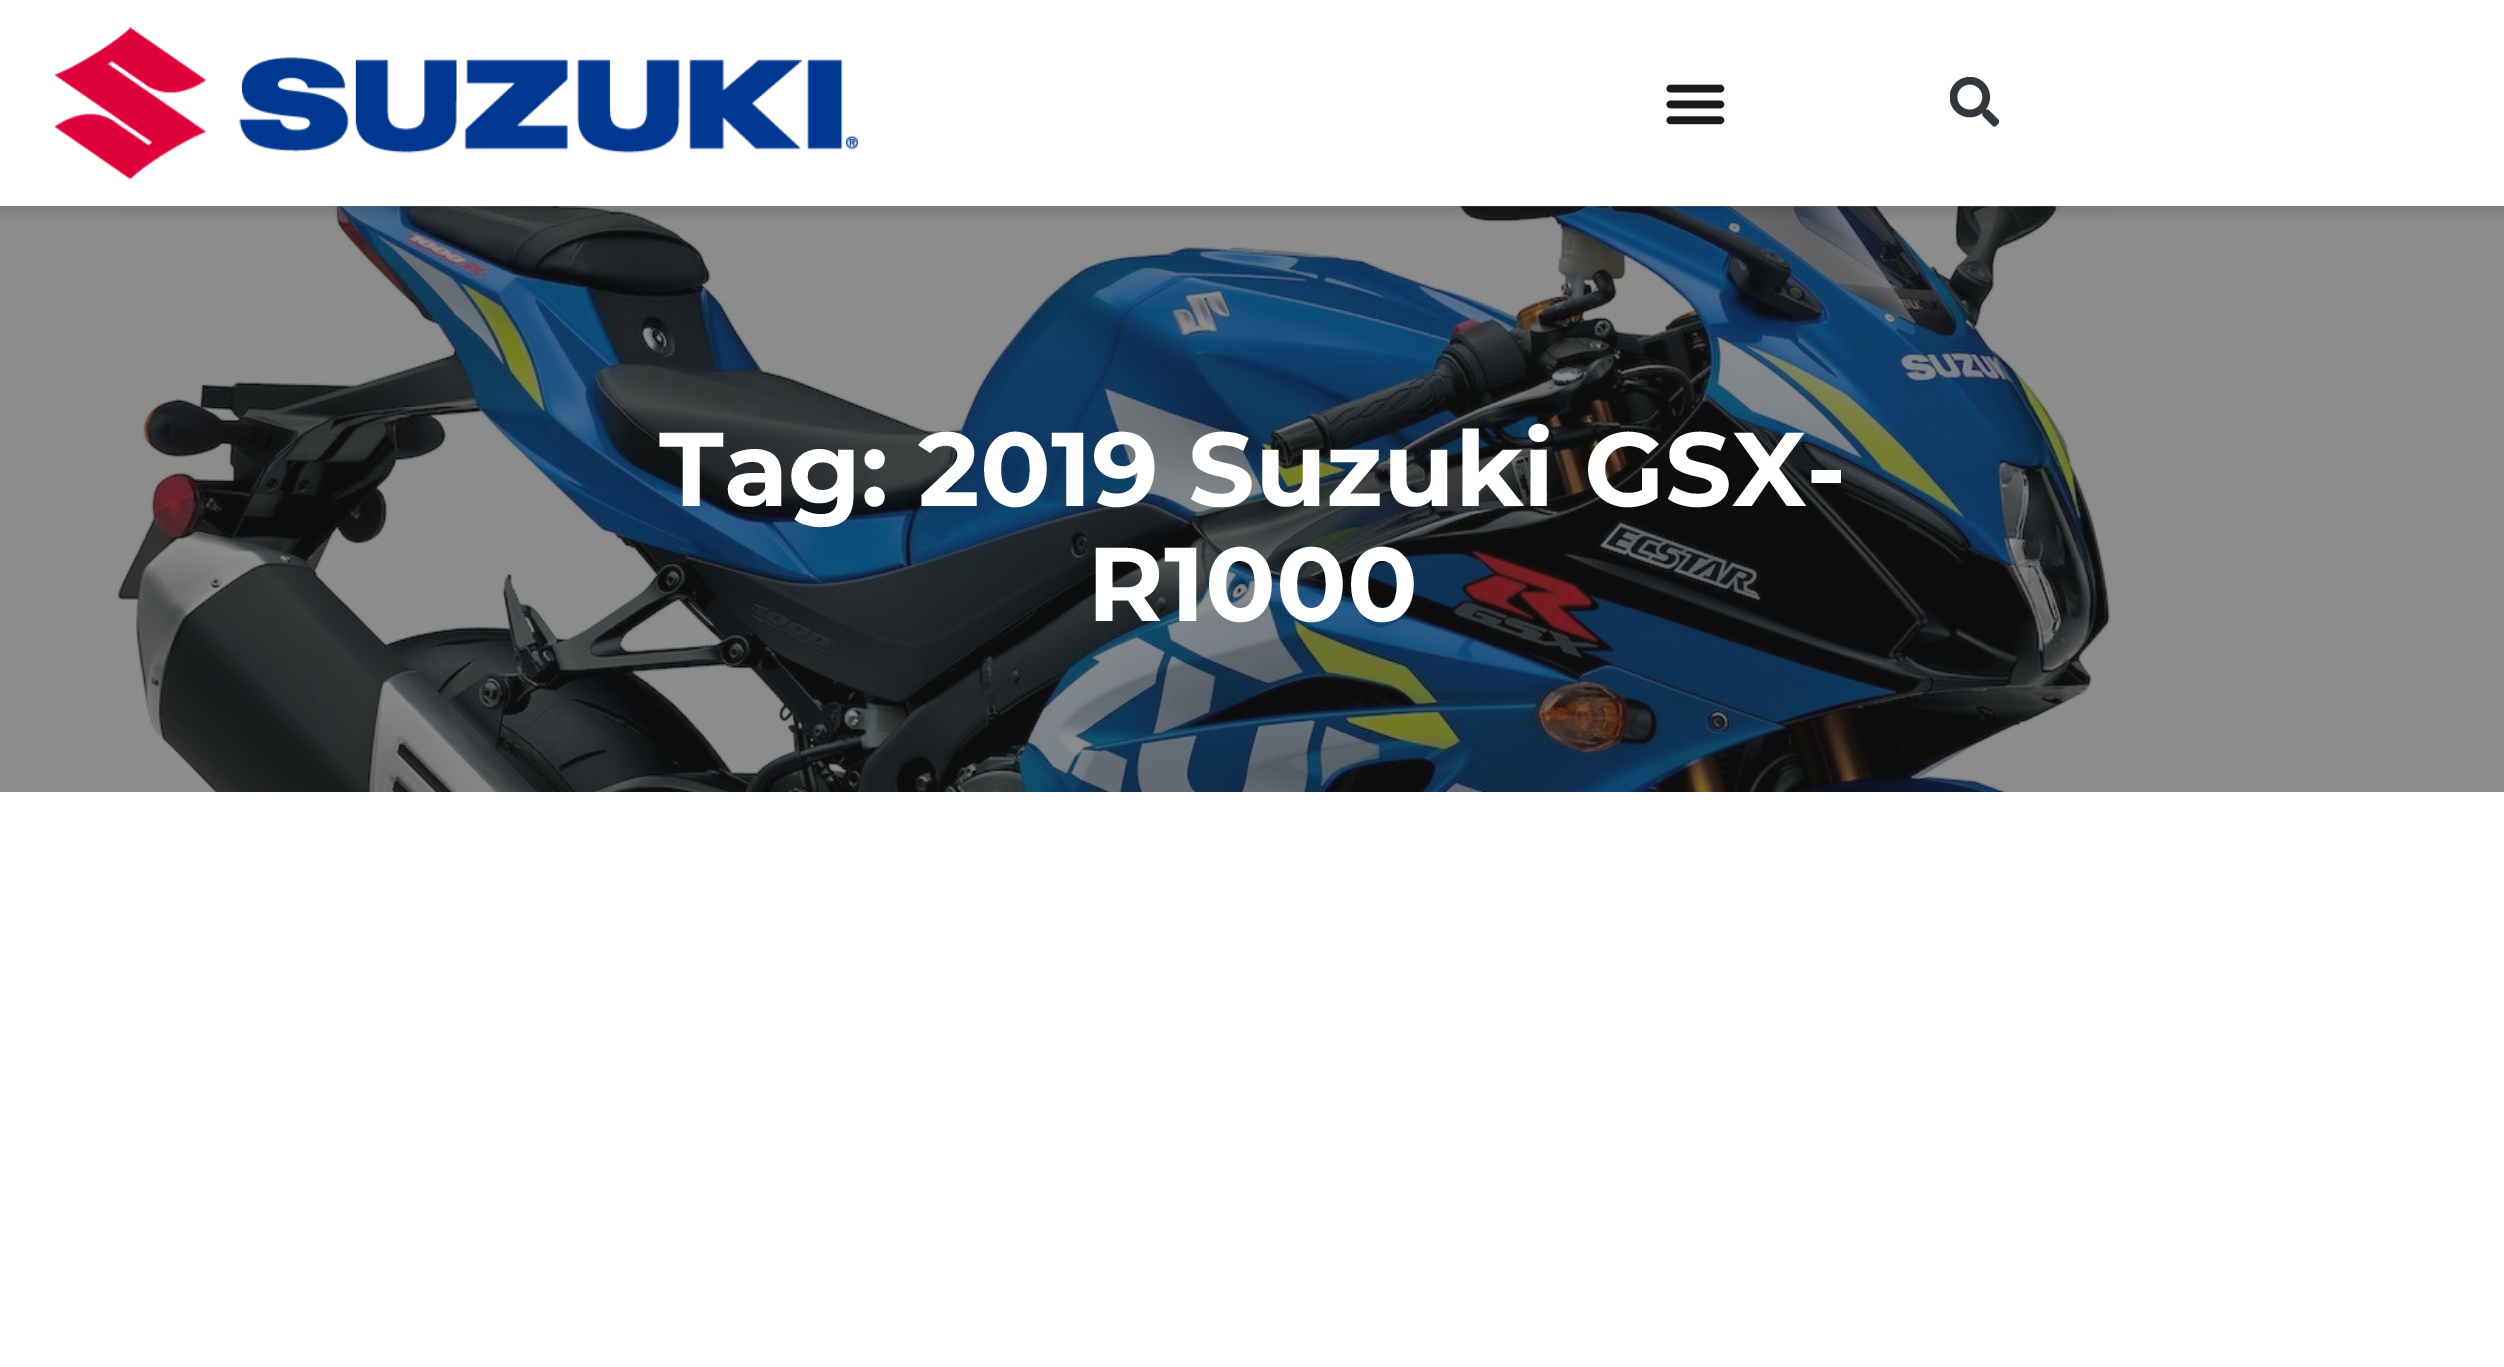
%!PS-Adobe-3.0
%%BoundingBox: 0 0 2504 1367
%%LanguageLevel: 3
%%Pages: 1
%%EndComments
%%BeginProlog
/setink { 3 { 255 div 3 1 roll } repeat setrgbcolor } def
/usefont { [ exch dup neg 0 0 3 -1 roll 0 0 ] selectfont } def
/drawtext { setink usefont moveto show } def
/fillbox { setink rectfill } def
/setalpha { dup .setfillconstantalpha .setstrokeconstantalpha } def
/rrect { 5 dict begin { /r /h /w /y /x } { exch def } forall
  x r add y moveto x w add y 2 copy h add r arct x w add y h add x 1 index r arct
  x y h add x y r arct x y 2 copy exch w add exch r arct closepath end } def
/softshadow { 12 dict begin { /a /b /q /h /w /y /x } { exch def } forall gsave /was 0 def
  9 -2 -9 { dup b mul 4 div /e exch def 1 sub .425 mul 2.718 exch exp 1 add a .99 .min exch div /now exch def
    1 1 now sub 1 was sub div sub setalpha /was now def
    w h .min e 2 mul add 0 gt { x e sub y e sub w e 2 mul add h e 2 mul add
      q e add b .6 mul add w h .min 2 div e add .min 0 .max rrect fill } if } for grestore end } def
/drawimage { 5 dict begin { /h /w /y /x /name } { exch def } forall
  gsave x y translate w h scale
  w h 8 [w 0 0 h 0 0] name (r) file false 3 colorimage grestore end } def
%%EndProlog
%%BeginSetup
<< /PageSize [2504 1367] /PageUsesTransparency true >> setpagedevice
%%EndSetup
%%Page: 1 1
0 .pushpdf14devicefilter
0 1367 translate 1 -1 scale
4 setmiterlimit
0 0 2504 1367 255 255 255 fillbox
0 206 2504 586 141 141 141 fillbox
(assets/img4.rgb) 115 206 1998 586 drawimage
gsave
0 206 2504 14 rectclip
0 0 0 setink
0 6 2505 206 0 7 0.15 softshadow
grestore
(assets/img1.rgb) 55 27 803 152 drawimage
(assets/img2.rgb) 1666 84 59 41 drawimage
(assets/img3.rgb) 1950 77 49 50 drawimage
(Tag: 2019 Suzuki GSX-) 659 506 /Montserrat-Bold 104.5 255 255 255 drawtext
(R1000) 1087 621 /Montserrat-Bold 104.5 255 255 255 drawtext
.poppdf14devicefilter showpage
%%EOF
